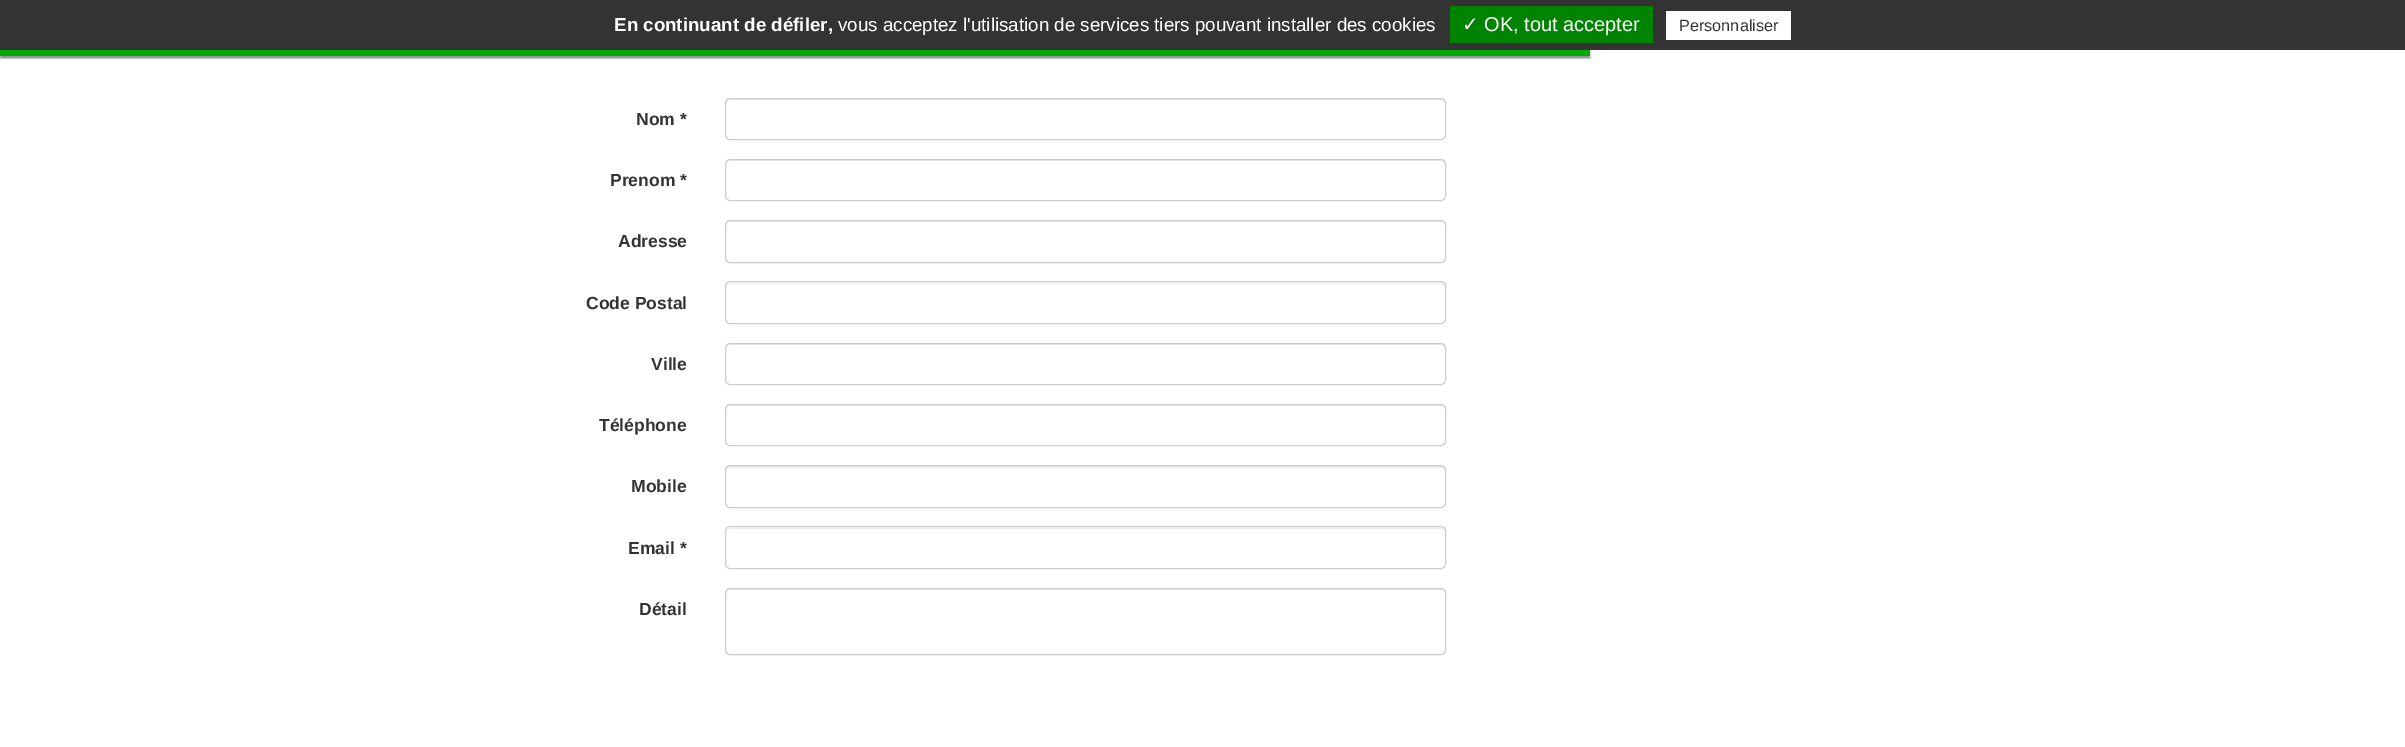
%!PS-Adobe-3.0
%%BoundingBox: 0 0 2405 747
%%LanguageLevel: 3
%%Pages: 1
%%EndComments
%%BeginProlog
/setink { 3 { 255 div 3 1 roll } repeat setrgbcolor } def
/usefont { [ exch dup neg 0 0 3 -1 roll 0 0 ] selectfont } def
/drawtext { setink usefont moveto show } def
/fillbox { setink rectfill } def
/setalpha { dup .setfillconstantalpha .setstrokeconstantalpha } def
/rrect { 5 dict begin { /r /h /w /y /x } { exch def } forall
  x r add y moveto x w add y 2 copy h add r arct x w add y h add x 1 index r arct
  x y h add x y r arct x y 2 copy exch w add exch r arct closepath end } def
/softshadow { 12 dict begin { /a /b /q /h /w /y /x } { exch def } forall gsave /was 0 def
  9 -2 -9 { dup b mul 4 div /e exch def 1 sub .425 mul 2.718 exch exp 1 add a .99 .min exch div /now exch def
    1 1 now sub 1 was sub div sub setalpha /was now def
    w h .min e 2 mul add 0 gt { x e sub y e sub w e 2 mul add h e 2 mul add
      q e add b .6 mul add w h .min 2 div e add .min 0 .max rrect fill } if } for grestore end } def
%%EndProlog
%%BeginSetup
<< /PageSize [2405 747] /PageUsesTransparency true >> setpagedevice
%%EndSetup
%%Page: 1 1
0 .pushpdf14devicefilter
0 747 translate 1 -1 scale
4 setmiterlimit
0 0 2405 747 255 255 255 fillbox
85 85 85 setink
0 51 1590 7 0 1 1 softshadow
255 255 255 setink
0 50 1590 6 0 1 1 softshadow
0 0 2405 50 51 51 51 fillbox
(En continuant de défiler,) 614 31 /LiberationSans-Bold 18.75 255 255 255 drawtext
(vous acceptez l'utilisation de services tiers pouvant installer des cookies) 838 31 /LiberationSans-Regular 18.75 255 255 255 drawtext
1450 6 203 37 0 131 0 fillbox
(✓) 1462 31 /DejaVuSans-Regular 20 255 255 255 drawtext
(OK, tout accepter) 1484 31 /LiberationSans-Regular 20 255 255 255 drawtext
1666 11 125 29 255 255 255 fillbox
(Personnaliser) 1679 31 /LiberationSans-Regular 16.25 51 51 51 drawtext
0 50 1590 6 0 170 0 fillbox
(Nom *) 636 125 /LiberationSans-Bold 17.5 51 51 51 drawtext
236 236 236 setink
730 100 moveto 1441 100 lineto 1443 100 1445 102 1445 104 curveto 1445 101 1444 99 1441 99 curveto 730 99 lineto 727 100 lineto 726 101 lineto 726 104 lineto 726 102 728 100 730 100 curveto closepath fill
204 204 204 setink
725.5 98.5 720 41 4.5 rrect stroke
(Prenom *) 610 186 /LiberationSans-Bold 17.5 51 51 51 drawtext
236 236 236 setink
730 161 moveto 1441 161 lineto 1443 161 1445 163 1445 165 curveto 1445 162 1444 160 1441 160 curveto 730 160 lineto 727 161 lineto 726 162 lineto 726 165 lineto 726 163 728 161 730 161 curveto closepath fill
204 204 204 setink
725.5 159.5 720 41 4.5 rrect stroke
(Adresse) 618 247 /LiberationSans-Bold 17.5 51 51 51 drawtext
236 236 236 setink
730 222 moveto 1441 222 lineto 1443 222 1445 224 1445 226 curveto 1445 223 1444 221 1441 221 curveto 730 221 lineto 727 222 lineto 726 223 lineto 726 226 lineto 726 224 728 222 730 222 curveto closepath fill
204 204 204 setink
725.5 220.5 720 42 4.5 rrect stroke
(Code Postal) 586 309 /LiberationSans-Bold 17.5 51 51 51 drawtext
236 236 236 setink
730 284 moveto 1441 284 lineto 1443 284 1445 285 1445 288 curveto 1445 285 1444 283 1441 283 curveto 730 283 lineto 727 284 lineto 726 285 lineto 726 288 lineto 726 285 728 284 730 284 curveto closepath fill
204 204 204 setink
725.5 281.5 720 42 4.5 rrect stroke
(Ville) 651 370 /LiberationSans-Bold 17.5 51 51 51 drawtext
236 236 236 setink
730 345 moveto 1441 345 lineto 1443 345 1445 347 1445 349 curveto 1445 346 1444 344 1441 344 curveto 730 344 lineto 727 345 lineto 726 346 lineto 726 349 lineto 726 347 728 345 730 345 curveto closepath fill
204 204 204 setink
725.5 343.5 720 41 4.5 rrect stroke
(Téléphone) 599 431 /LiberationSans-Bold 17.5 51 51 51 drawtext
236 236 236 setink
730 406 moveto 1441 406 lineto 1443 406 1445 408 1445 410 curveto 1445 407 1444 405 1441 405 curveto 730 405 lineto 727 406 lineto 726 407 lineto 726 410 lineto 726 408 728 406 730 406 curveto closepath fill
204 204 204 setink
725.5 404.5 720 41 4.5 rrect stroke
(Mobile) 631 492 /LiberationSans-Bold 17.5 51 51 51 drawtext
236 236 236 setink
730 468 moveto 1441 468 lineto 1443 468 1445 469 1445 471 curveto 1445 468 1444 466 1441 466 curveto 730 466 lineto 727 467 lineto 726 468 lineto 726 471 lineto 726 469 728 468 730 468 curveto closepath fill
204 204 204 setink
725.5 465.5 720 42 4.5 rrect stroke
(Email *) 628 554 /LiberationSans-Bold 17.5 51 51 51 drawtext
236 236 236 setink
730 529 moveto 1441 529 lineto 1443 529 1445 530 1445 532 curveto 1445 530 1443 528 1441 528 curveto 730 528 lineto 728 528 726 530 726 532 curveto 726 530 728 529 730 529 curveto closepath fill
204 204 204 setink
725.5 526.5 720 42 4.5 rrect stroke
(Détail) 639 615 /LiberationSans-Bold 17.5 51 51 51 drawtext
236 236 236 setink
730 590 moveto 1441 590 lineto 1443 590 1445 592 1445 594 curveto 1445 591 1444 589 1441 589 curveto 730 589 lineto 727 590 lineto 726 591 lineto 726 594 lineto 726 592 728 590 730 590 curveto closepath fill
204 204 204 setink
725.5 588.5 720 66 4.5 rrect stroke
.poppdf14devicefilter showpage
%%EOF
